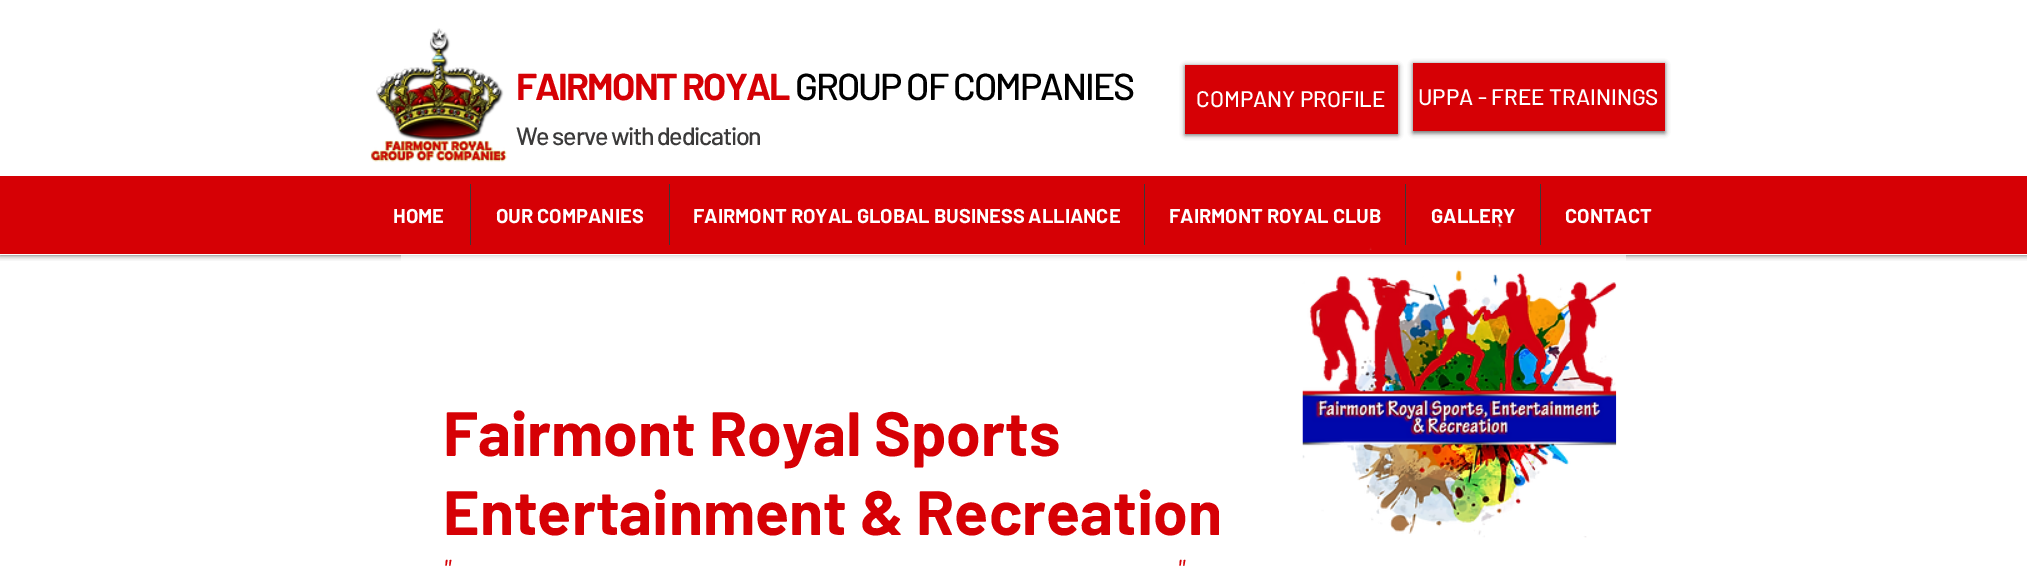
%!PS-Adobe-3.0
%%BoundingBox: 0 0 2027 567
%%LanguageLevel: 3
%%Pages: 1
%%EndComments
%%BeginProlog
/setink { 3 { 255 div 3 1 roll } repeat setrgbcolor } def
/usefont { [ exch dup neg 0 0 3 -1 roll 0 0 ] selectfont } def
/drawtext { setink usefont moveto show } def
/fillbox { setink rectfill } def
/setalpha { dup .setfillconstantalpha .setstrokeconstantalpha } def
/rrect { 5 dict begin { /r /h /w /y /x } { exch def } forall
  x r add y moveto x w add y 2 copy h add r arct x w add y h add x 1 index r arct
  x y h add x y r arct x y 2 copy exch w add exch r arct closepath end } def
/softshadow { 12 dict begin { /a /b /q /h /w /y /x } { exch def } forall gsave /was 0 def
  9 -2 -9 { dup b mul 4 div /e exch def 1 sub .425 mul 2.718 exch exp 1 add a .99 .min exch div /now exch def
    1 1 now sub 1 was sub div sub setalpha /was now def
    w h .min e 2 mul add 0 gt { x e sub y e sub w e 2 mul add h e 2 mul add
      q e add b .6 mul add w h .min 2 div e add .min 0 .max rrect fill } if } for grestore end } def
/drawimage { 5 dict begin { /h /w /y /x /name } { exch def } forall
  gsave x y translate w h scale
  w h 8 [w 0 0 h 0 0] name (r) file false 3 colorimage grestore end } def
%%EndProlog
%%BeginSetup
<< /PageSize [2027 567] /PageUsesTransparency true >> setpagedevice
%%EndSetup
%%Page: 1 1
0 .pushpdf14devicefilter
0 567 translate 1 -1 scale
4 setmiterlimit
0 0 2027 567 255 255 255 fillbox
gsave
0 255 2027 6 rectclip
0 0 0 setink
0 0 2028 255 0 3 0.7 softshadow
grestore
(assets/img1.rgb) 370 28 137 134 drawimage
/Barlow-Bold 37.5 usefont
214 0 5 setink
516 100 moveto -1.9 0 (FAIRMONT ROYAL) ashow
/Barlow-Medium 37.5 usefont
0 0 0 setink
795 100 moveto -1.9 0 (GROUP OF COMPANIES) ashow
1185 66 213 69 0 2.5 0.6 softshadow
1185 65 213 69 214 0 5 fillbox
(COMPANY PROFILE) 1196 107 /Barlow-Medium 22.5 255 255 255 drawtext
0 0 0 setink
1413 64 252 69 0 2.5 0.6 softshadow
1413 63 252 68 214 0 5 fillbox
(UPPA - FREE TRAININGS) 1418 105 /Barlow-Medium 22.5 255 255 255 drawtext
/Barlow-Medium 25 usefont
59 58 58 setink
516 145 moveto -1.25 0 (We serve with dedication) ashow
0 176 2027 78 214 0 5 fillbox
(HOME) 393 223 /Barlow-Bold 20 255 255 255 drawtext
470 184 1 61 59 58 58 fillbox
(OUR COMPANIES) 496 223 /Barlow-Bold 20 255 255 255 drawtext
669 184 1 61 59 58 58 fillbox
(FAIRMONT ROYAL GLOBAL BUSINESS ALLIANCE) 693 223 /Barlow-Bold 20 255 255 255 drawtext
1144 184 1 61 59 58 58 fillbox
(FAIRMONT ROYAL CLUB) 1169 223 /Barlow-Bold 20 255 255 255 drawtext
1405 184 1 61 59 58 58 fillbox
(GALLERY) 1431 223 /Barlow-Bold 20 255 255 255 drawtext
1540 184 1 61 59 58 58 fillbox
(CONTACT) 1565 223 /Barlow-Bold 20 255 255 255 drawtext
0.6 setalpha
401 255 1225 6 255 255 255 fillbox
1 setalpha
(Fairmont Royal Sports) 443 456 /Barlow-Bold 62.5 214 0 5 drawtext
(Entertainment & Recreation) 443 535 /Barlow-Bold 62.5 214 0 5 drawtext
(assets/img2.rgb) 1302 223 315 315 drawimage
(") 443 580 /Barlow-Italic 29 214 0 5 drawtext
(") 1177 580 /Barlow-Italic 29 214 0 5 drawtext
.poppdf14devicefilter showpage
%%EOF
